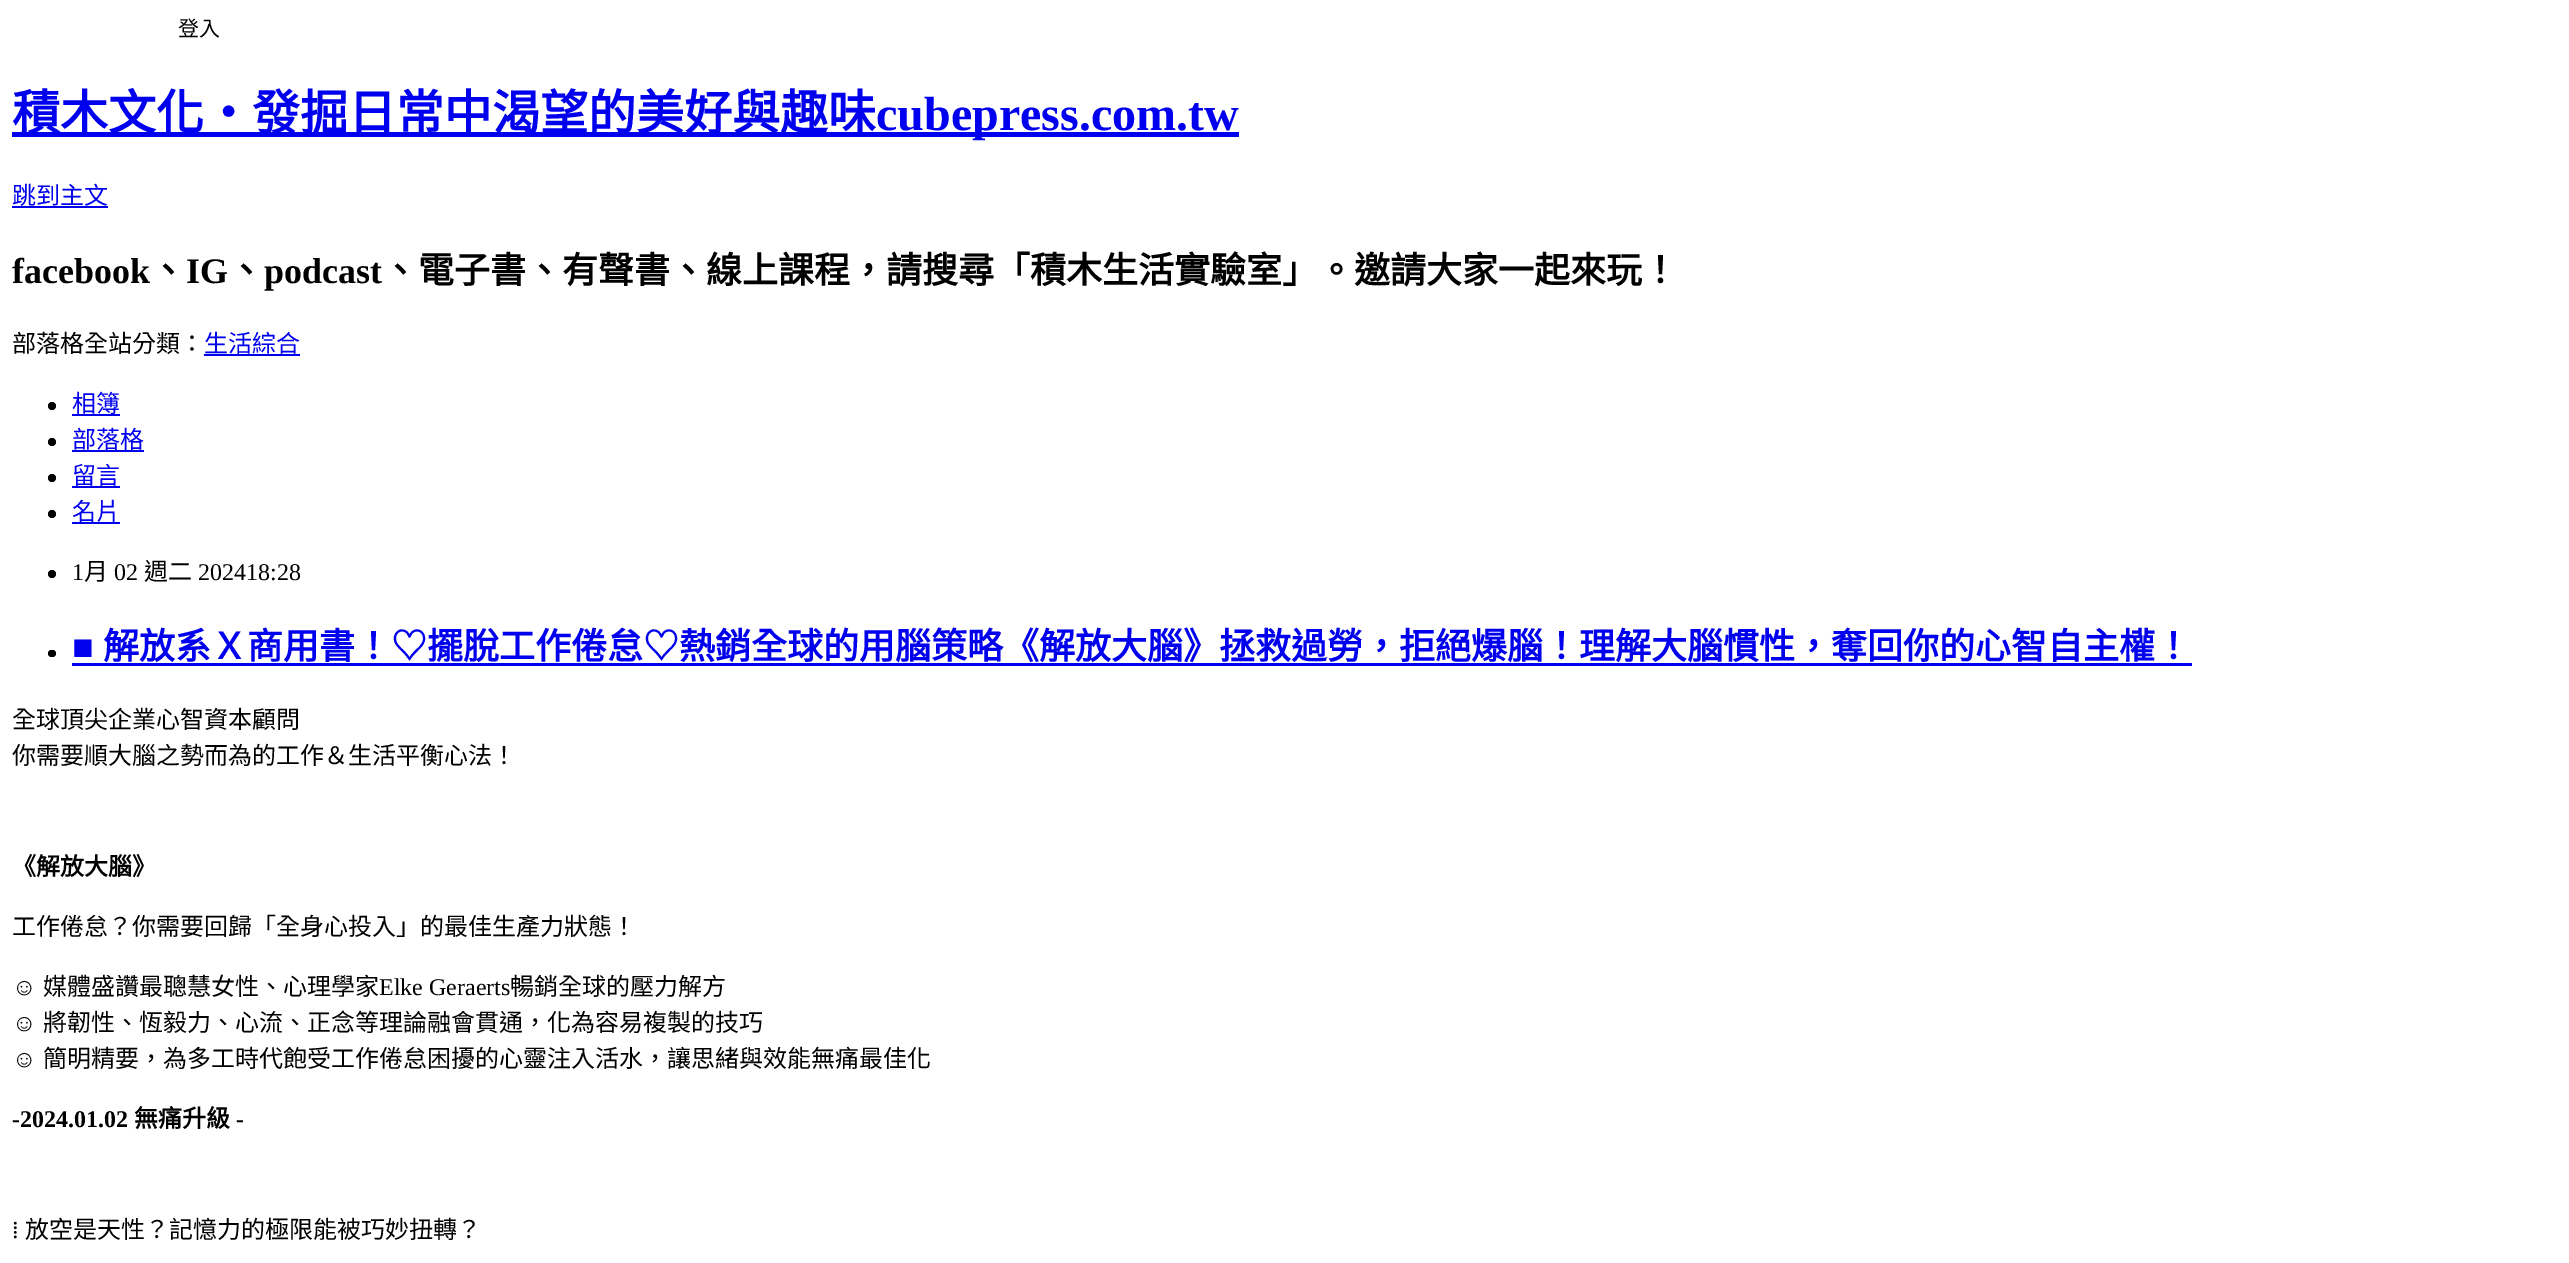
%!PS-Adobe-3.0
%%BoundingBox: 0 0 2569 1263
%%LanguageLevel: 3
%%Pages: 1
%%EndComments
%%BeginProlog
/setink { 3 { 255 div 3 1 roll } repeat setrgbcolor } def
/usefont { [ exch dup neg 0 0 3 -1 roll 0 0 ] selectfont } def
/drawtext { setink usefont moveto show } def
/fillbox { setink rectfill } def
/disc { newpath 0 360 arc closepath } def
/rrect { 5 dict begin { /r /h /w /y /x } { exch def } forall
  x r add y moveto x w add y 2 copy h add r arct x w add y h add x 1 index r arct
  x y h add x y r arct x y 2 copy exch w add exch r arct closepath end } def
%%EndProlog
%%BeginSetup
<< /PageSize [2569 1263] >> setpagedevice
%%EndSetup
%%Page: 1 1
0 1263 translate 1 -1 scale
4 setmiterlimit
0 0 2569 1263 255 255 255 fillbox
(登入) 178 36 /NotoSansCJKTC-Regular 21 0 0 0 drawtext
12 132 1227 5 0 0 238 fillbox
(積木文化‧發掘日常中渴望的美好與趣味) 12 130 /NotoSansCJKTC-Bold 48 0 0 238 drawtext
(cubepress.com.tw) 876 130 /LiberationSerif-Bold 48 0 0 238 drawtext
(跳到主文) 12 204 /NotoSansCJKTC-Regular 24 0 0 238 drawtext
12 206 96 2 0 0 238 fillbox
(facebook) 12 283 /LiberationSerif-Bold 36 0 0 0 drawtext
(、) 150 283 /NotoSansCJKTC-Bold 36 0 0 0 drawtext
(IG) 186 283 /LiberationSerif-Bold 36 0 0 0 drawtext
(、) 228 283 /NotoSansCJKTC-Bold 36 0 0 0 drawtext
(podcast) 264 283 /LiberationSerif-Bold 36 0 0 0 drawtext
(、電子書、有聲書、線上課程，請搜尋「積木生活實驗室」。邀請大家一起來玩！) 382 283 /NotoSansCJKTC-Bold 36 0 0 0 drawtext
(部落格全站分類：) 12 352 /NotoSansCJKTC-Regular 24 0 0 0 drawtext
(生活綜合) 204 352 /NotoSansCJKTC-Regular 24 0 0 238 drawtext
204 354 96 2 0 0 238 fillbox
0 0 0 setink
52 406 4 disc fill
(相簿) 72 412 /NotoSansCJKTC-Regular 24 0 0 238 drawtext
72 414 48 2 0 0 238 fillbox
0 0 0 setink
52 442 4 disc fill
(部落格) 72 448 /NotoSansCJKTC-Regular 24 0 0 238 drawtext
72 450 72 2 0 0 238 fillbox
0 0 0 setink
52 478 4 disc fill
(留言) 72 484 /NotoSansCJKTC-Regular 24 0 0 238 drawtext
72 486 48 2 0 0 238 fillbox
0 0 0 setink
52 514 4 disc fill
(名片) 72 520 /NotoSansCJKTC-Regular 24 0 0 238 drawtext
72 522 48 2 0 0 238 fillbox
0 0 0 setink
52 574 4 disc fill
(1) 72 580 /LiberationSerif-Regular 24 0 0 0 drawtext
(月) 84 580 /NotoSansCJKTC-Regular 24 0 0 0 drawtext
(02) 114 580 /LiberationSerif-Regular 24 0 0 0 drawtext
(週二) 144 580 /NotoSansCJKTC-Regular 24 0 0 0 drawtext
(202418:28) 198 580 /LiberationSerif-Regular 24 0 0 0 drawtext
48 650 8 7 3.5 rrect fill
(■) 72 659 /LiberationSerif-Bold 36 0 0 238 drawtext
72 663 2120 3 0 0 238 fillbox
(解放系Ｘ商用書！♡擺脫工作倦怠♡熱銷全球的用腦策略《解放大腦》拯救過勞，拒絕爆腦！理解大腦慣性，奪回你的心智自主權！) 103 659 /NotoSansCJKTC-Bold 36 0 0 238 drawtext
(全球頂尖企業心智資本顧問) 12 728 /NotoSansCJKTC-Regular 24 0 0 0 drawtext
(你需要順大腦之勢而為的工作＆生活平衡心法！) 12 764 /NotoSansCJKTC-Regular 24 0 0 0 drawtext
(《解放大腦》) 12 875 /NotoSansCJKTC-Bold 24 0 0 0 drawtext
(工作倦怠？你需要回歸「全身心投入」的最佳生產力狀態！) 12 935 /NotoSansCJKTC-Regular 24 0 0 0 drawtext
(☺) 12 995 /LiberationSerif-Regular 24 0 0 0 drawtext
(媒體盛讚最聰慧女性、心理學家) 43 995 /NotoSansCJKTC-Regular 24 0 0 0 drawtext
(Elke Geraerts) 379 995 /LiberationSerif-Regular 24 0 0 0 drawtext
(暢銷全球的壓力解方) 510 995 /NotoSansCJKTC-Regular 24 0 0 0 drawtext
(☺) 12 1031 /LiberationSerif-Regular 24 0 0 0 drawtext
(將韌性、恆毅力、心流、正念等理論融會貫通，化為容易複製的技巧) 43 1031 /NotoSansCJKTC-Regular 24 0 0 0 drawtext
(☺) 12 1067 /LiberationSerif-Regular 24 0 0 0 drawtext
(簡明精要，為多工時代飽受工作倦怠困擾的心靈注入活水，讓思緒與效能無痛最佳化) 43 1067 /NotoSansCJKTC-Regular 24 0 0 0 drawtext
(-2024.01.02) 12 1127 /LiberationSerif-Bold 24 0 0 0 drawtext
(無痛升級) 134 1127 /NotoSansCJKTC-Bold 24 0 0 0 drawtext
(-) 236 1127 /LiberationSerif-Bold 24 0 0 0 drawtext
(⁞) 12 1238 /LiberationSerif-Regular 24 0 0 0 drawtext
(放空是天性？記憶力的極限能被巧妙扭轉？) 25 1238 /NotoSansCJKTC-Regular 24 0 0 0 drawtext
showpage
%%EOF
